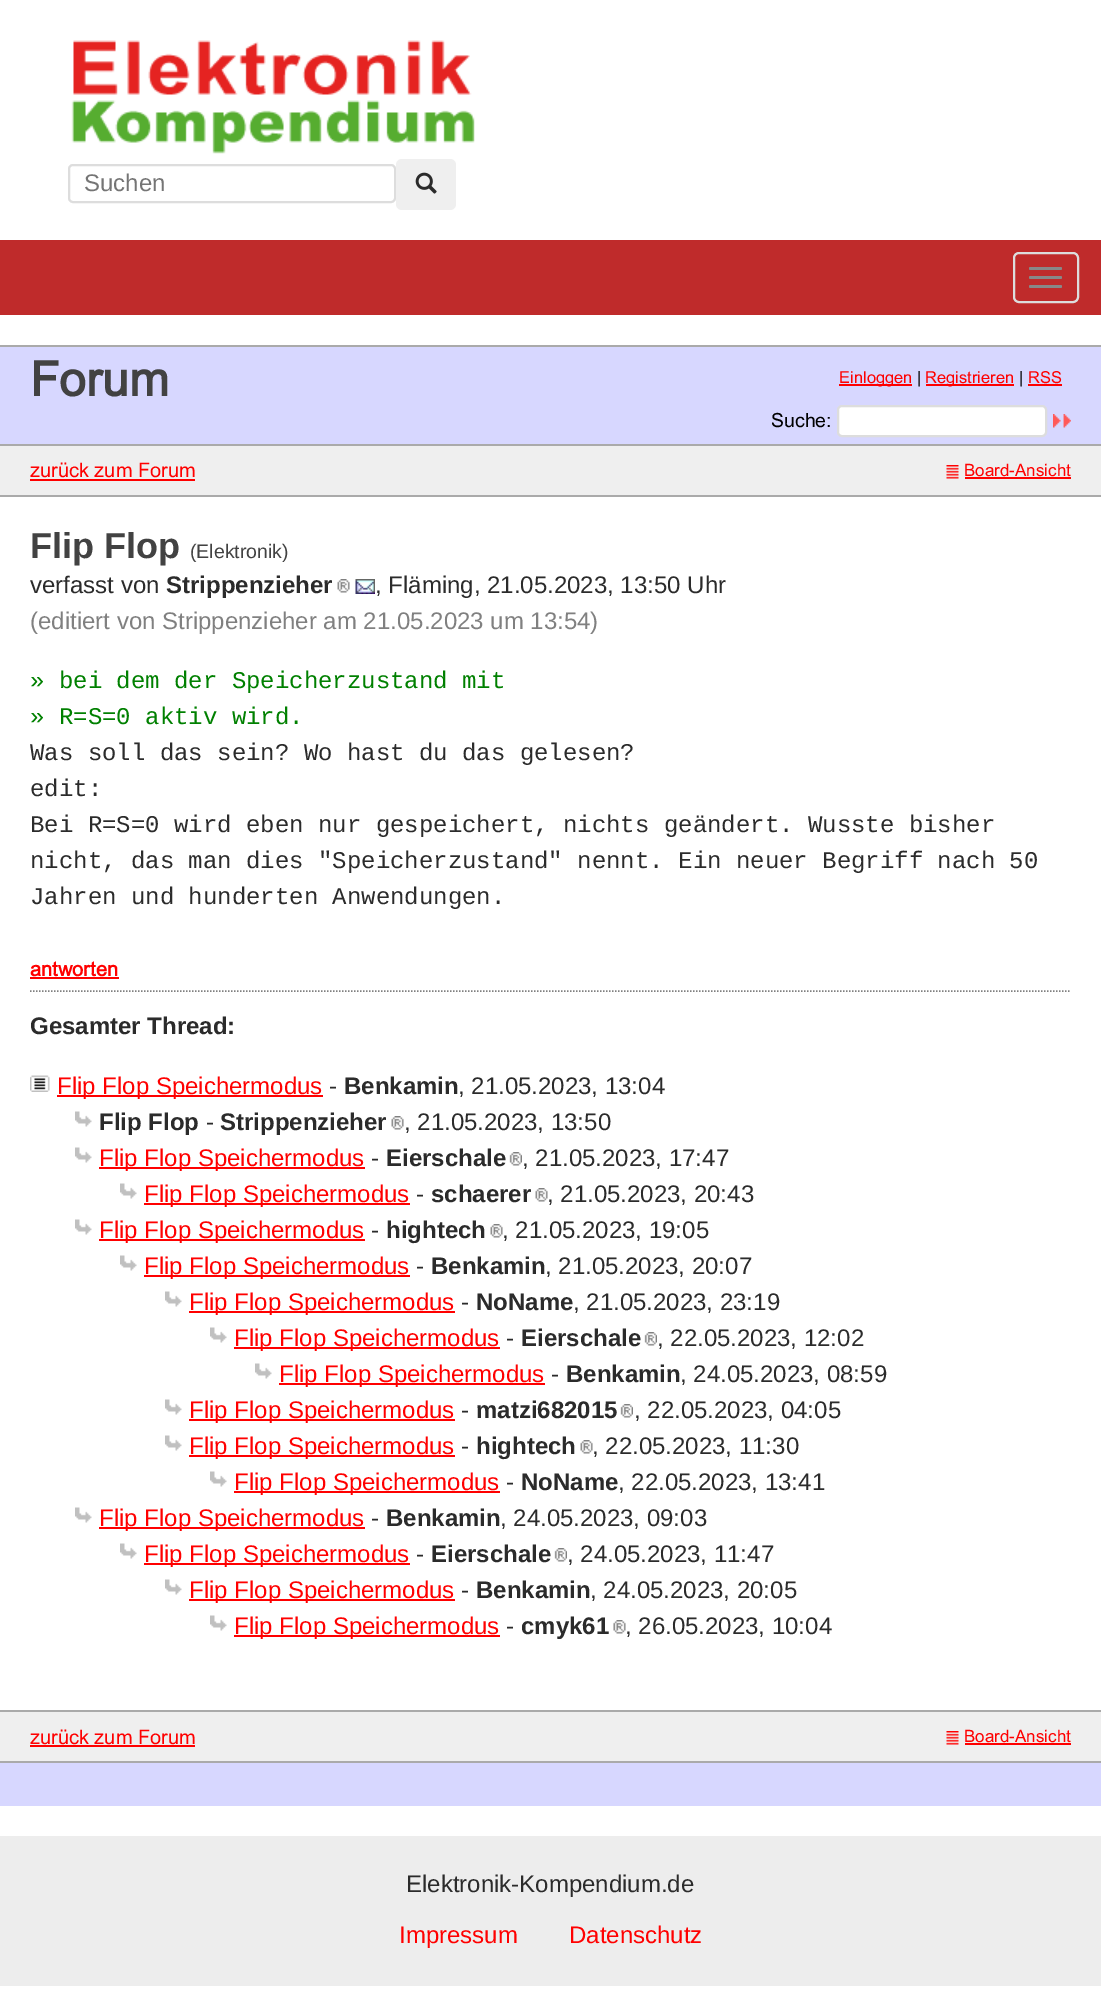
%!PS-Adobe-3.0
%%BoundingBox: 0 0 1101 2003
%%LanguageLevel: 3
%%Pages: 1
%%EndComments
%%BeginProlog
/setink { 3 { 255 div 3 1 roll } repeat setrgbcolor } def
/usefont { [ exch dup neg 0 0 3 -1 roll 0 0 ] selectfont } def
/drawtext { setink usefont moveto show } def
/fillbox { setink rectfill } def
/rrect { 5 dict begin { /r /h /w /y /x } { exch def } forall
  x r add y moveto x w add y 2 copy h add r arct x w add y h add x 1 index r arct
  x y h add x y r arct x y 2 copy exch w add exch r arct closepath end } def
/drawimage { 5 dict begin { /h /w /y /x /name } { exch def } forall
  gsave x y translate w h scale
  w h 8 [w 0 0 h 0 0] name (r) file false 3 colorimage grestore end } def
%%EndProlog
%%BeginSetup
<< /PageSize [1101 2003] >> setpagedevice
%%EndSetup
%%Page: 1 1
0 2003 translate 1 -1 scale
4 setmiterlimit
0 0 1101 2003 255 255 255 fillbox
(assets/img1.rgb) 71 40 404 114 drawimage
221 221 221 setink
2 setlinewidth
69 165 326 37 4 rrect stroke
(Suchen) 84 191 /LiberationSans-Regular 24 117 117 117 drawtext
239 239 239 setink
396 159 60 51 6 rrect fill
(assets/img2.rgb) 415 172 22 22 drawimage
0 240 1101 75 191 43 43 fillbox
221 221 221 setink
1014 253 64 49 5 rrect stroke
136 136 136 setink
1029 267 33 3 1.5 rrect fill
1029 276 33 3 1.5 rrect fill
1029 285 33 3 1.5 rrect fill
0 345 1101 2 170 170 170 fillbox
0 347 1101 97 215 215 255 fillbox
(Forum) 30 396 /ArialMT-Bold 48 66 66 66 drawtext
839 384 73 2 255 0 0 fillbox
(Einloggen) 839 383 /ArialMT-Regular 16.5 255 0 0 drawtext
(|) 917 383 /ArialMT-Regular 16.5 0 0 0 drawtext
926 384 88 2 255 0 0 fillbox
(Registrieren) 925 383 /ArialMT-Regular 16.5 255 0 0 drawtext
(|) 1019 383 /ArialMT-Regular 16.5 0 0 0 drawtext
(RSS) 1028 383 /ArialMT-Regular 16.5 255 0 0 drawtext
1028 384 34 2 255 0 0 fillbox
(Suche:) 771 427 /ArialMT-Regular 19.5 0 0 0 drawtext
255 255 255 setink
838 406 208 30 4 rrect gsave fill grestore
221 221 221 setink
stroke
(assets/img3.rgb) 1053 414 18 14 drawimage
0 446 1101 49 239 239 239 fillbox
0 444 1101 2 170 170 170 fillbox
(zurück zum Forum) 30 477 /ArialMT-Regular 20 255 0 0 drawtext
30 479 165 2 255 0 0 fillbox
(assets/img4.rgb) 946 465 13 14 drawimage
(Board-Ansicht) 964 476 /ArialMT-Regular 17 255 0 0 drawtext
965 477 106 2 255 0 0 fillbox
0 495 1101 2 170 170 170 fillbox
(Flip Flop) 30 558 /LiberationSans-Bold 36 66 66 66 drawtext
(\(Elektronik\)) 190 558 /LiberationSans-Regular 19.5 66 66 66 drawtext
(verfasst von) 30 593 /LiberationSans-Regular 24 43 43 43 drawtext
(Strippenzieher) 166 593 /LiberationSans-Bold 24 43 43 43 drawtext
(assets/img5.rgb) 337 579 13 14 drawimage
(assets/img6.rgb) 355 579 20 15 drawimage
(, Fläming, 21.05.2023, 13:50 Uhr) 375 593 /LiberationSans-Regular 24 43 43 43 drawtext
(\(editiert von Strippenzieher am 21.05.2023 um 13:54\)) 30 629 /LiberationSans-Regular 24 128 128 128 drawtext
(» bei dem der Speicherzustand mit) 30 688 /LiberationMono-Regular 24 0 128 0 drawtext
(» R=S=0 aktiv wird.) 30 724 /LiberationMono-Regular 24 0 128 0 drawtext
(Was soll das sein? Wo hast du das gelesen?) 30 760 /LiberationMono-Regular 24 43 43 43 drawtext
(edit:) 30 796 /LiberationMono-Regular 24 43 43 43 drawtext
(Bei R=S=0 wird eben nur gespeichert, nichts geändert. Wusste bisher) 30 832 /LiberationMono-Regular 24 43 43 43 drawtext
(nicht, das man dies "Speicherzustand" nennt. Ein neuer Begriff nach 50) 30 868 /LiberationMono-Regular 24 43 43 43 drawtext
(Jahren und hunderten Anwendungen.) 30 904 /LiberationMono-Regular 24 43 43 43 drawtext
(antworten) 30 976 /ArialMT-Bold 20 255 0 0 drawtext
30 977 89 2 255 0 0 fillbox
128 128 128 setink
1.5 setlinewidth
[1.5 1.5] 0 setdash
30 991 moveto 1071 991 lineto stroke
(Gesamter Thread:) 30 1034 /LiberationSans-Bold 24 43 43 43 drawtext
(assets/img7.rgb) 30 1075 20 17 drawimage
57 1095 266 2 255 0 0 fillbox
(Flip Flop Speichermodus) 57 1094 /LiberationSans-Regular 24 255 0 0 drawtext
(-) 329 1094 /LiberationSans-Regular 24 43 43 43 drawtext
(Benkamin) 344 1094 /LiberationSans-Bold 24 43 43 43 drawtext
(, 21.05.2023, 13:04) 458 1094 /LiberationSans-Regular 24 43 43 43 drawtext
(assets/img8.rgb) 75 1111 17 16 drawimage
(Flip Flop) 99 1130 /LiberationSans-Bold 24 43 43 43 drawtext
(-) 206 1130 /LiberationSans-Regular 24 43 43 43 drawtext
(Strippenzieher) 220 1130 /LiberationSans-Bold 24 43 43 43 drawtext
(assets/img5.rgb) 391 1116 13 14 drawimage
(, 21.05.2023, 13:50) 404 1130 /LiberationSans-Regular 24 43 43 43 drawtext
(assets/img8.rgb) 75 1147 17 16 drawimage
99 1167 266 2 255 0 0 fillbox
(Flip Flop Speichermodus) 99 1166 /LiberationSans-Regular 24 255 0 0 drawtext
(-) 371 1166 /LiberationSans-Regular 24 43 43 43 drawtext
(Eierschale) 386 1166 /LiberationSans-Bold 24 43 43 43 drawtext
(assets/img9.rgb) 509 1152 13 14 drawimage
(, 21.05.2023, 17:47) 522 1166 /LiberationSans-Regular 24 43 43 43 drawtext
(assets/img8.rgb) 120 1183 17 16 drawimage
144 1203 266 2 255 0 0 fillbox
(Flip Flop Speichermodus) 144 1202 /LiberationSans-Regular 24 255 0 0 drawtext
(-) 416 1202 /LiberationSans-Regular 24 43 43 43 drawtext
(schaerer) 431 1202 /LiberationSans-Bold 24 43 43 43 drawtext
(assets/img5.rgb) 535 1188 13 14 drawimage
(, 21.05.2023, 20:43) 547 1202 /LiberationSans-Regular 24 43 43 43 drawtext
(assets/img8.rgb) 75 1219 17 16 drawimage
99 1239 266 2 255 0 0 fillbox
(Flip Flop Speichermodus) 99 1238 /LiberationSans-Regular 24 255 0 0 drawtext
(-) 371 1238 /LiberationSans-Regular 24 43 43 43 drawtext
(hightech) 386 1238 /LiberationSans-Bold 24 43 43 43 drawtext
(assets/img5.rgb) 490 1224 13 14 drawimage
(, 21.05.2023, 19:05) 502 1238 /LiberationSans-Regular 24 43 43 43 drawtext
(assets/img8.rgb) 120 1255 17 16 drawimage
144 1275 266 2 255 0 0 fillbox
(Flip Flop Speichermodus) 144 1274 /LiberationSans-Regular 24 255 0 0 drawtext
(-) 416 1274 /LiberationSans-Regular 24 43 43 43 drawtext
(Benkamin) 431 1274 /LiberationSans-Bold 24 43 43 43 drawtext
(, 21.05.2023, 20:07) 545 1274 /LiberationSans-Regular 24 43 43 43 drawtext
(assets/img8.rgb) 165 1291 17 16 drawimage
189 1311 266 2 255 0 0 fillbox
(Flip Flop Speichermodus) 189 1310 /LiberationSans-Regular 24 255 0 0 drawtext
(-) 461 1310 /LiberationSans-Regular 24 43 43 43 drawtext
(NoName) 476 1310 /LiberationSans-Bold 24 43 43 43 drawtext
(, 21.05.2023, 23:19) 573 1310 /LiberationSans-Regular 24 43 43 43 drawtext
(assets/img8.rgb) 210 1327 17 16 drawimage
234 1347 266 2 255 0 0 fillbox
(Flip Flop Speichermodus) 234 1346 /LiberationSans-Regular 24 255 0 0 drawtext
(-) 506 1346 /LiberationSans-Regular 24 43 43 43 drawtext
(Eierschale) 521 1346 /LiberationSans-Bold 24 43 43 43 drawtext
(assets/img10.rgb) 644 1332 13 14 drawimage
(, 22.05.2023, 12:02) 657 1346 /LiberationSans-Regular 24 43 43 43 drawtext
(assets/img8.rgb) 255 1363 17 16 drawimage
279 1383 266 2 255 0 0 fillbox
(Flip Flop Speichermodus) 279 1382 /LiberationSans-Regular 24 255 0 0 drawtext
(-) 551 1382 /LiberationSans-Regular 24 43 43 43 drawtext
(Benkamin) 566 1382 /LiberationSans-Bold 24 43 43 43 drawtext
(, 24.05.2023, 08:59) 680 1382 /LiberationSans-Regular 24 43 43 43 drawtext
(assets/img8.rgb) 165 1399 17 16 drawimage
189 1419 266 2 255 0 0 fillbox
(Flip Flop Speichermodus) 189 1418 /LiberationSans-Regular 24 255 0 0 drawtext
(-) 461 1418 /LiberationSans-Regular 24 43 43 43 drawtext
(matzi682015) 476 1418 /LiberationSans-Bold 24 43 43 43 drawtext
(assets/img10.rgb) 620 1404 13 14 drawimage
(, 22.05.2023, 04:05) 634 1418 /LiberationSans-Regular 24 43 43 43 drawtext
(assets/img8.rgb) 165 1435 17 16 drawimage
189 1455 266 2 255 0 0 fillbox
(Flip Flop Speichermodus) 189 1454 /LiberationSans-Regular 24 255 0 0 drawtext
(-) 461 1454 /LiberationSans-Regular 24 43 43 43 drawtext
(hightech) 476 1454 /LiberationSans-Bold 24 43 43 43 drawtext
(assets/img5.rgb) 580 1440 13 14 drawimage
(, 22.05.2023, 11:30) 592 1454 /LiberationSans-Regular 24 43 43 43 drawtext
(assets/img8.rgb) 210 1471 17 16 drawimage
234 1491 266 2 255 0 0 fillbox
(Flip Flop Speichermodus) 234 1490 /LiberationSans-Regular 24 255 0 0 drawtext
(-) 506 1490 /LiberationSans-Regular 24 43 43 43 drawtext
(NoName) 521 1490 /LiberationSans-Bold 24 43 43 43 drawtext
(, 22.05.2023, 13:41) 618 1490 /LiberationSans-Regular 24 43 43 43 drawtext
(assets/img8.rgb) 75 1507 17 16 drawimage
99 1527 266 2 255 0 0 fillbox
(Flip Flop Speichermodus) 99 1526 /LiberationSans-Regular 24 255 0 0 drawtext
(-) 371 1526 /LiberationSans-Regular 24 43 43 43 drawtext
(Benkamin) 386 1526 /LiberationSans-Bold 24 43 43 43 drawtext
(, 24.05.2023, 09:03) 500 1526 /LiberationSans-Regular 24 43 43 43 drawtext
(assets/img8.rgb) 120 1543 17 16 drawimage
144 1563 266 2 255 0 0 fillbox
(Flip Flop Speichermodus) 144 1562 /LiberationSans-Regular 24 255 0 0 drawtext
(-) 416 1562 /LiberationSans-Regular 24 43 43 43 drawtext
(Eierschale) 431 1562 /LiberationSans-Bold 24 43 43 43 drawtext
(assets/img10.rgb) 554 1548 13 14 drawimage
(, 24.05.2023, 11:47) 567 1562 /LiberationSans-Regular 24 43 43 43 drawtext
(assets/img8.rgb) 165 1579 17 16 drawimage
189 1599 266 2 255 0 0 fillbox
(Flip Flop Speichermodus) 189 1598 /LiberationSans-Regular 24 255 0 0 drawtext
(-) 461 1598 /LiberationSans-Regular 24 43 43 43 drawtext
(Benkamin) 476 1598 /LiberationSans-Bold 24 43 43 43 drawtext
(, 24.05.2023, 20:05) 590 1598 /LiberationSans-Regular 24 43 43 43 drawtext
(assets/img8.rgb) 210 1615 17 16 drawimage
234 1635 266 2 255 0 0 fillbox
(Flip Flop Speichermodus) 234 1634 /LiberationSans-Regular 24 255 0 0 drawtext
(-) 506 1634 /LiberationSans-Regular 24 43 43 43 drawtext
(cmyk61) 521 1634 /LiberationSans-Bold 24 43 43 43 drawtext
(assets/img11.rgb) 613 1620 13 14 drawimage
(, 26.05.2023, 10:04) 625 1634 /LiberationSans-Regular 24 43 43 43 drawtext
0 1712 1101 49 239 239 239 fillbox
0 1710 1101 2 170 170 170 fillbox
(zurück zum Forum) 30 1744 /ArialMT-Regular 20 255 0 0 drawtext
30 1745 165 2 255 0 0 fillbox
(assets/img4.rgb) 946 1731 13 14 drawimage
(Board-Ansicht) 964 1742 /ArialMT-Regular 17 255 0 0 drawtext
965 1743 106 2 255 0 0 fillbox
0 1763 1101 43 215 215 255 fillbox
0 1761 1101 2 170 170 170 fillbox
0 1836 1101 150 237 237 237 fillbox
(Elektronik-Kompendium.de) 406 1892 /LiberationSans-Regular 24 43 43 43 drawtext
(Impressum) 399 1943 /LiberationSans-Regular 24 255 0 0 drawtext
(Datenschutz) 569 1943 /LiberationSans-Regular 24 255 0 0 drawtext
showpage
%%EOF
